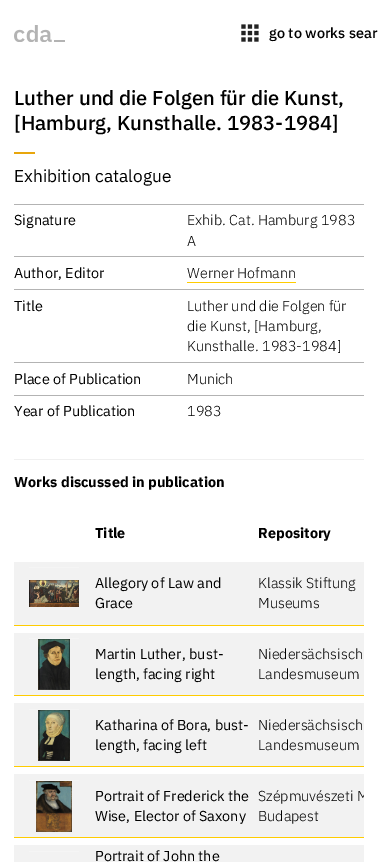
%!PS-Adobe-3.0
%%BoundingBox: 0 0 378 862
%%LanguageLevel: 3
%%Pages: 1
%%EndComments
%%BeginProlog
/setink { 3 { 255 div 3 1 roll } repeat setrgbcolor } def
/usefont { [ exch dup neg 0 0 3 -1 roll 0 0 ] selectfont } def
/drawtext { setink usefont moveto show } def
/fillbox { setink rectfill } def
/drawimage { 5 dict begin { /h /w /y /x /name } { exch def } forall
  gsave x y translate w h scale
  w h 8 [w 0 0 h 0 0] name (r) file false 3 colorimage grestore end } def
%%EndProlog
%%BeginSetup
<< /PageSize [378 862] >> setpagedevice
%%EndSetup
%%Page: 1 1
0 862 translate 1 -1 scale
4 setmiterlimit
0 0 378 862 255 255 255 fillbox
(assets/img1.rgb) 14 25 51 17 drawimage
(assets/img2.rgb) 241 24 18 18 drawimage
(go to works sear) 269 38 /IBMPlexSans-Medium 14.4 0 0 0 drawtext
(Luther und die Folgen für die Kunst,) 14 105 /IBMPlexSans-Medium 20.2 0 0 0 drawtext
([Hamburg, Kunsthalle. 1983-1984]) 14 130 /IBMPlexSans-Medium 20.2 0 0 0 drawtext
14 152 21 2 232 166 12 fillbox
(Exhibition catalogue) 14 182 /IBMPlexSans-Regular 17.25 0 0 0 drawtext
14 204 350 1 179 179 179 fillbox
(Signature) 14 225 /IBMPlexSans-Regular 14.4 0 0 0 drawtext
(Exhib. Cat. Hamburg 1983) 187 225 /IBMPlexSans-Light 14.4 0 0 0 drawtext
(A) 187 246 /IBMPlexSans-Light 14.4 0 0 0 drawtext
14 256 350 1 179 179 179 fillbox
(Author, Editor) 14 278 /IBMPlexSans-Regular 14.4 0 0 0 drawtext
(Werner Hofmann) 187 278 /IBMPlexSans-Light 14.4 0 0 0 drawtext
187 282 109 1 255 204 0 fillbox
14 289 350 1 179 179 179 fillbox
(Title) 14 311 /IBMPlexSans-Regular 14.4 0 0 0 drawtext
(Luther und die Folgen für) 187 311 /IBMPlexSans-Light 14.4 0 0 0 drawtext
(die Kunst, [Hamburg,) 187 331 /IBMPlexSans-Light 14.4 0 0 0 drawtext
(Kunsthalle. 1983-1984]) 187 351 /IBMPlexSans-Light 14.4 0 0 0 drawtext
14 362 350 1 179 179 179 fillbox
(Place of Publication) 14 384 /IBMPlexSans-Regular 14.4 0 0 0 drawtext
(Munich) 187 384 /IBMPlexSans-Light 14.4 0 0 0 drawtext
14 395 350 1 179 179 179 fillbox
(Year of Publication) 14 416 /IBMPlexSans-Regular 14.4 0 0 0 drawtext
(1983) 187 416 /IBMPlexSans-Light 14.4 0 0 0 drawtext
14 459 350 1 240 240 240 fillbox
(Works discussed in publication) 14 487 /IBMPlexSans-Bold 14.4 0 0 0 drawtext
(Title) 95 538 /IBMPlexSans-Bold 14.4 0 0 0 drawtext
(Repository) 258 538 /IBMPlexSans-Bold 14.4 0 0 0 drawtext
14 562 350 63 242 242 242 fillbox
14 625 350 1 255 204 0 fillbox
29 567 50 1 245 245 245 fillbox
(assets/img3.rgb) 29 580 50 27 drawimage
(Allegory of Law and) 95 588 /IBMPlexSans-Regular 14.4 0 0 0 drawtext
(Grace) 95 608 /IBMPlexSans-Regular 14.4 0 0 0 drawtext
(Klassik Stiftung) 258 588 /IBMPlexSans-Light 14.4 0 0 0 drawtext
(Museums) 258 608 /IBMPlexSans-Light 14.4 0 0 0 drawtext
14 633 350 62 242 242 242 fillbox
14 695 350 1 255 204 0 fillbox
29 638 50 1 245 245 245 fillbox
(assets/img4.rgb) 38 639 32 51 drawimage
(Martin Luther, bust-) 95 659 /IBMPlexSans-Regular 14.4 0 0 0 drawtext
(length, facing right) 95 679 /IBMPlexSans-Regular 14.4 0 0 0 drawtext
(Niedersächsisch) 258 659 /IBMPlexSans-Light 14.4 0 0 0 drawtext
(Landesmuseum) 258 679 /IBMPlexSans-Light 14.4 0 0 0 drawtext
14 703 350 63 242 242 242 fillbox
14 766 350 1 255 204 0 fillbox
29 709 50 1 245 245 245 fillbox
(assets/img5.rgb) 38 710 32 51 drawimage
(Katharina of Bora, bust-) 95 730 /IBMPlexSans-Regular 14.4 0 0 0 drawtext
(length, facing left) 95 750 /IBMPlexSans-Regular 14.4 0 0 0 drawtext
(Niedersächsisch) 258 730 /IBMPlexSans-Light 14.4 0 0 0 drawtext
(Landesmuseum) 258 750 /IBMPlexSans-Light 14.4 0 0 0 drawtext
14 774 350 63 242 242 242 fillbox
14 837 350 1 255 204 0 fillbox
29 780 50 1 245 245 245 fillbox
(assets/img6.rgb) 36 781 36 51 drawimage
(Portrait of Frederick the) 95 801 /IBMPlexSans-Regular 14.4 0 0 0 drawtext
(Wise, Elector of Saxony) 95 821 /IBMPlexSans-Regular 14.4 0 0 0 drawtext
gsave
14 505 350 357 rectclip
(Szépmuvészeti M) 258 801 /IBMPlexSans-Light 14.4 0 0 0 drawtext
grestore
(Budapest) 258 821 /IBMPlexSans-Light 14.4 0 0 0 drawtext
14 845 350 17 242 242 242 fillbox
29 851 50 1 245 245 245 fillbox
(Portrait of John the) 95 861 /IBMPlexSans-Regular 14.4 0 0 0 drawtext
showpage
%%EOF
